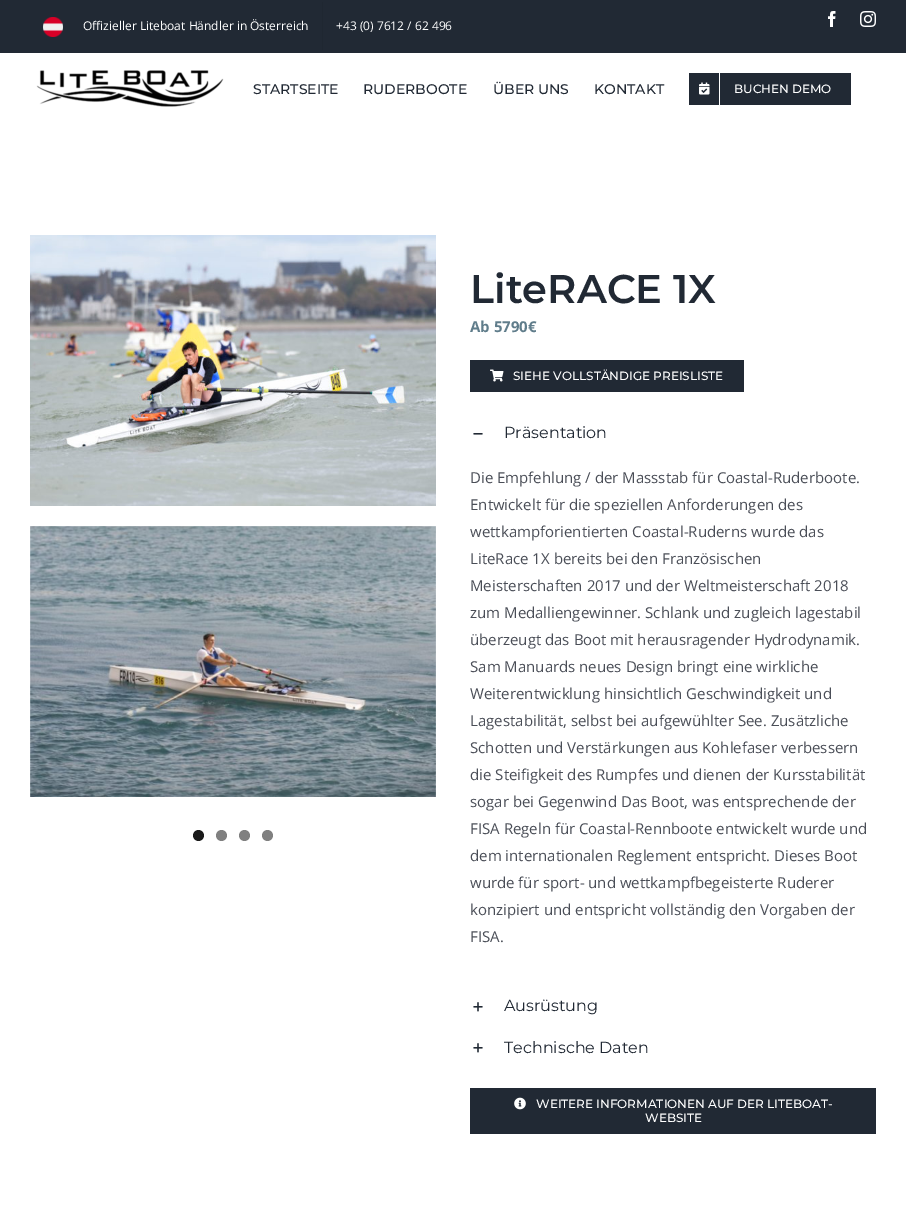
%!PS-Adobe-3.0
%%BoundingBox: 0 0 906 1212
%%LanguageLevel: 3
%%Pages: 1
%%EndComments
%%BeginProlog
/setink { 3 { 255 div 3 1 roll } repeat setrgbcolor } def
/usefont { [ exch dup neg 0 0 3 -1 roll 0 0 ] selectfont } def
/drawtext { setink usefont moveto show } def
/fillbox { setink rectfill } def
/disc { newpath 0 360 arc closepath } def
/drawimage { 5 dict begin { /h /w /y /x /name } { exch def } forall
  gsave x y translate w h scale
  w h 8 [w 0 0 h 0 0] name (r) file false 3 colorimage grestore end } def
%%EndProlog
%%BeginSetup
<< /PageSize [906 1212] >> setpagedevice
%%EndSetup
%%Page: 1 1
0 1212 translate 1 -1 scale
4 setmiterlimit
0 0 906 1212 255 255 255 fillbox
0 0 906 53 33 41 52 fillbox
(assets/img1.rgb) 43 17 20 20 drawimage
(Offizieller Liteboat Händler in Österreich) 83 30 /OpenSans-Regular 12 255 255 255 drawtext
322 2 1 48 31 39 49 fillbox
(+43 \(0\) 7612 / 62 496) 336 30 /OpenSans-Regular 12 255 255 255 drawtext
(assets/img2.rgb) 828 11 8 16 drawimage
(assets/img3.rgb) 860 11 16 16 drawimage
(assets/img4.rgb) 36 70 188 37 drawimage
(STARTSEITE) 253 94 /Montserrat-Medium 14 33 41 52 drawtext
(RUDERBOOTE) 363 94 /Montserrat-Medium 14 33 41 52 drawtext
(ÜBER UNS) 493 94 /Montserrat-Medium 14 33 41 52 drawtext
(KONTAKT) 594 94 /Montserrat-Medium 14 33 41 52 drawtext
689 73 162 32 33 41 52 fillbox
719 73 1 32 255 255 255 fillbox
(assets/img5.rgb) 699 82 11 13 drawimage
(BUCHEN DEMO) 734 93 /Montserrat-Medium 12 255 255 255 drawtext
(assets/img6.rgb) 30 235 406 271 drawimage
(assets/img7.rgb) 30 526 406 271 drawimage
26 26 26 setink
198.5 835.5 5.5 disc fill
128 128 128 setink
221.5 835.5 5.5 disc fill
244.5 835.5 5.5 disc fill
267.5 835.5 5.5 disc fill
(LiteRACE 1X) 470 303 /Montserrat-SemiBold 40 33 41 52 drawtext
(Ab 5790€) 470 332 /OpenSans-Bold 15 96 125 139 drawtext
470 360 274 32 33 41 52 fillbox
(assets/img8.rgb) 490 369 14 13 drawimage
(SIEHE VOLLSTÄNDIGE PREISLISTE) 513 380 /Montserrat-Medium 12 255 255 255 drawtext
(assets/img9.rgb) 473 433 10 2 drawimage
(Präsentation) 504 438 /Montserrat-Regular 16 33 41 52 drawtext
(Die Empfehlung / der Massstab für Coastal-Ruderboote.) 470 483 /OpenSans-Regular 15 74 78 87 drawtext
(Entwickelt für die speziellen Anforderungen des) 470 510 /OpenSans-Regular 15 74 78 87 drawtext
(wettkampforientierten Coastal-Ruderns wurde das) 470 537 /OpenSans-Regular 15 74 78 87 drawtext
(LiteRace 1X bereits bei den Französischen) 470 564 /OpenSans-Regular 15 74 78 87 drawtext
(Meisterschaften 2017 und der Weltmeisterschaft 2018) 470 591 /OpenSans-Regular 15 74 78 87 drawtext
(zum Medalliengewinner. Schlank und zugleich lagestabil) 470 618 /OpenSans-Regular 15 74 78 87 drawtext
(überzeugt das Boot mit herausragender Hydrodynamik.) 470 645 /OpenSans-Regular 15 74 78 87 drawtext
(Sam Manuards neues Design bringt eine wirkliche) 470 672 /OpenSans-Regular 15 74 78 87 drawtext
(Weiterentwicklung hinsichtlich Geschwindigkeit und) 470 699 /OpenSans-Regular 15 74 78 87 drawtext
(Lagestabilität, selbst bei aufgewühlter See. Zusätzliche) 470 726 /OpenSans-Regular 15 74 78 87 drawtext
(Schotten und Verstärkungen aus Kohlefaser verbessern) 470 753 /OpenSans-Regular 15 74 78 87 drawtext
(die Steifigkeit des Rumpfes und dienen der Kursstabilität) 470 780 /OpenSans-Regular 15 74 78 87 drawtext
(sogar bei Gegenwind Das Boot, was entsprechende der) 470 807 /OpenSans-Regular 15 74 78 87 drawtext
(FISA Regeln für Coastal-Rennboote entwickelt wurde und) 470 834 /OpenSans-Regular 15 74 78 87 drawtext
(dem internationalen Reglement entspricht. Dieses Boot) 470 861 /OpenSans-Regular 15 74 78 87 drawtext
(wurde für sport- und wettkampfbegeisterte Ruderer) 470 888 /OpenSans-Regular 15 74 78 87 drawtext
(konzipiert und entspricht vollständig den Vorgaben der) 470 915 /OpenSans-Regular 15 74 78 87 drawtext
(FISA.) 470 942 /OpenSans-Regular 15 74 78 87 drawtext
(assets/img10.rgb) 473 1002 10 10 drawimage
(Ausrüstung) 504 1011 /Montserrat-Regular 16 33 41 52 drawtext
(assets/img10.rgb) 473 1043 10 10 drawimage
(Technische Daten) 504 1053 /Montserrat-Regular 16 33 41 52 drawtext
470 1088 406 46 33 41 52 fillbox
(assets/img11.rgb) 514 1097 12 13 drawimage
(WEITERE INFORMATIONEN AUF DER LITEBOAT-) 536 1108 /Montserrat-Medium 12 255 255 255 drawtext
(WEBSITE) 645 1122 /Montserrat-Medium 12 255 255 255 drawtext
showpage
%%EOF
